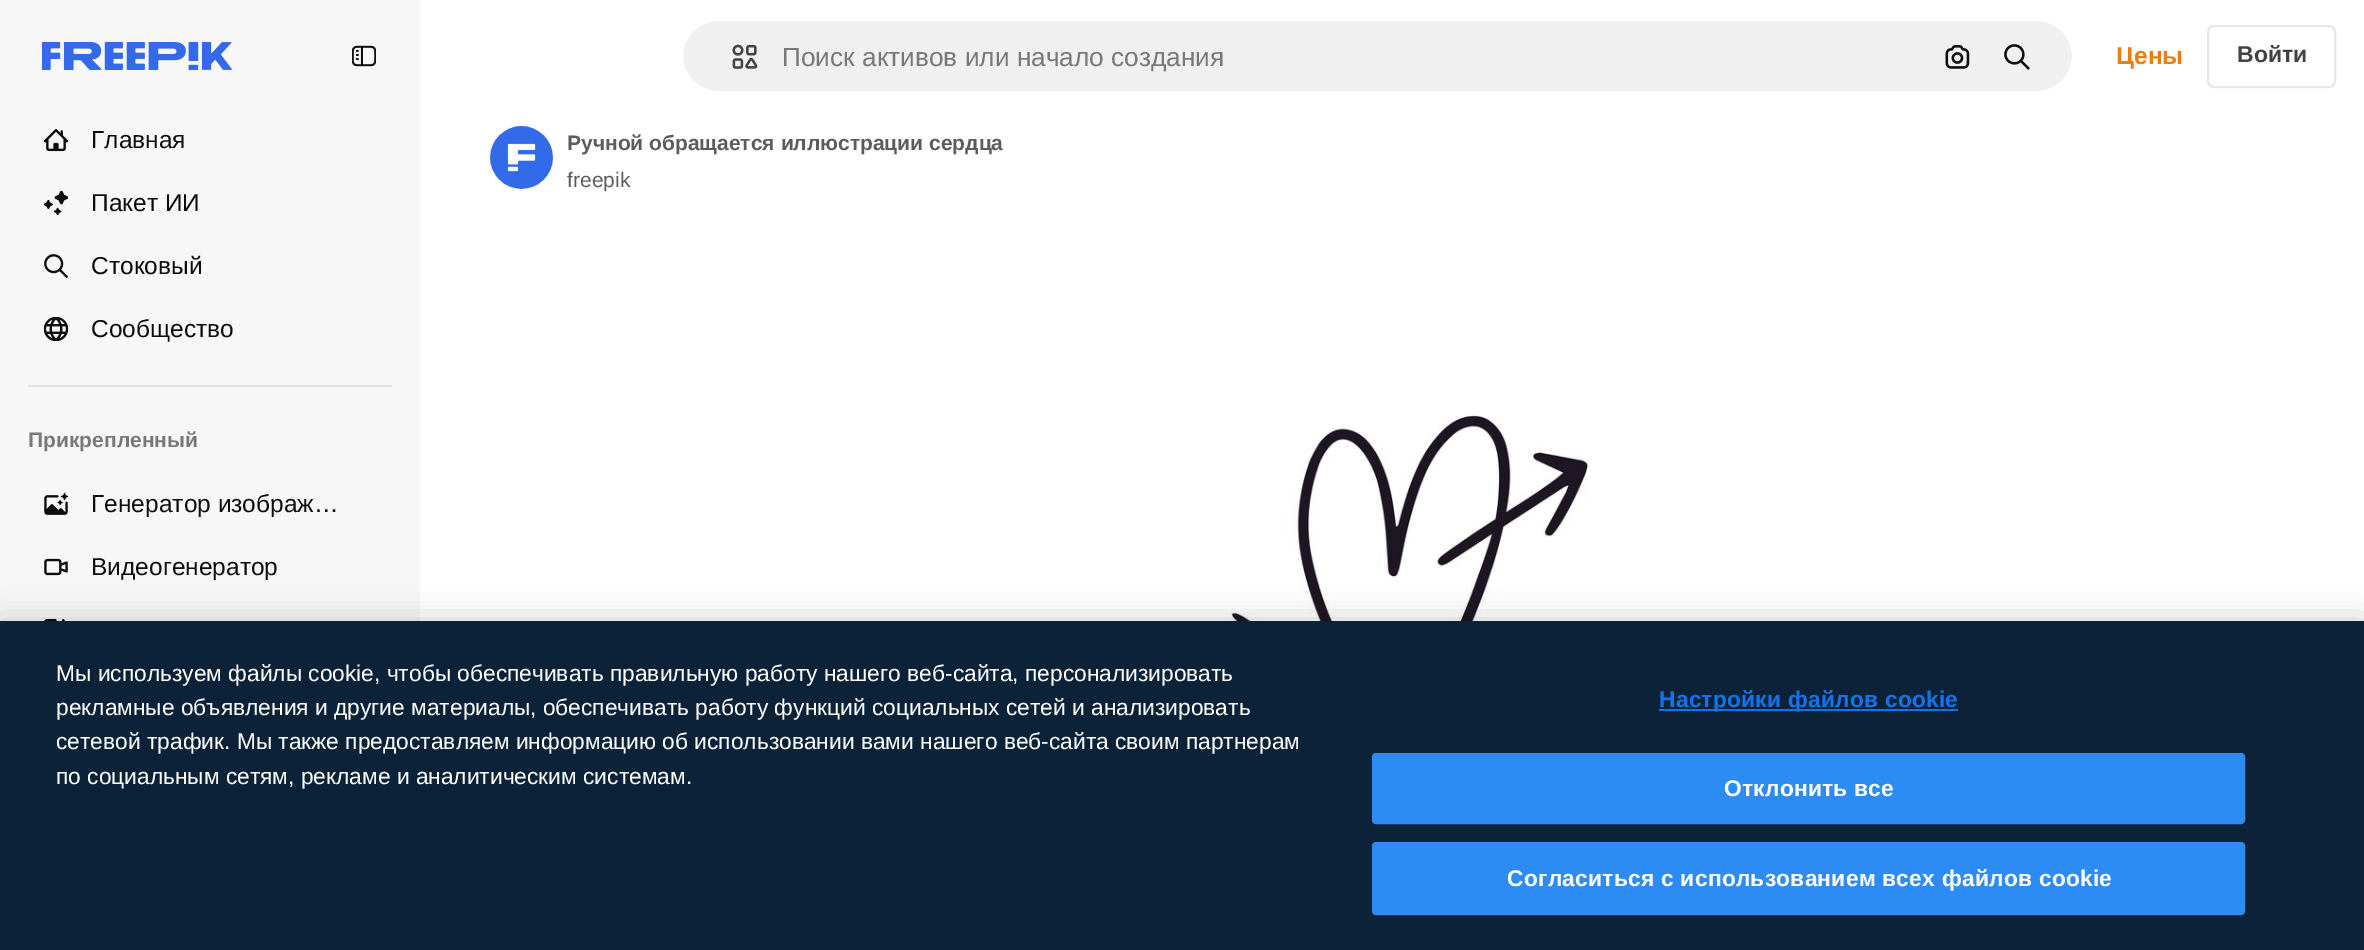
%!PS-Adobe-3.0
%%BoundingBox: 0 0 2364 950
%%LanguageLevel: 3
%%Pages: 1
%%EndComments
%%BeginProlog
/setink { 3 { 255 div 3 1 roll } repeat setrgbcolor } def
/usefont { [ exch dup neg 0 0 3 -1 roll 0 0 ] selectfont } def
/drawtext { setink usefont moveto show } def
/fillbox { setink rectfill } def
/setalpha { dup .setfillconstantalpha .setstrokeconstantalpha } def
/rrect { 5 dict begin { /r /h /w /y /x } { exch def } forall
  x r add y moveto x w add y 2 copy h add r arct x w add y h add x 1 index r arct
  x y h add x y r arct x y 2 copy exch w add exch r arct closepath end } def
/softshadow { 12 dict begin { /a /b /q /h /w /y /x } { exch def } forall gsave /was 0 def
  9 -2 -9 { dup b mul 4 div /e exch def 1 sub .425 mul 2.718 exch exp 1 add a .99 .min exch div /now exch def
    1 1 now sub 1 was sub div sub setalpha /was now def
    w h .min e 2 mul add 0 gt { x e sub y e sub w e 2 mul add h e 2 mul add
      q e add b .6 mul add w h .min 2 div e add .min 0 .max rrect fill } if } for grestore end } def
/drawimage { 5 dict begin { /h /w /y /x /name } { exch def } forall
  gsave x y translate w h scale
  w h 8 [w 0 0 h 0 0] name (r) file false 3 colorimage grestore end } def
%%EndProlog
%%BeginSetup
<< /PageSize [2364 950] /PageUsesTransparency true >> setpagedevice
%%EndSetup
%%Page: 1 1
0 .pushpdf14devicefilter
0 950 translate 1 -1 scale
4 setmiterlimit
0 0 2364 950 255 255 255 fillbox
0 0 420 621 247 247 247 fillbox
(assets/img1.rgb) 42 42 190 28 drawimage
(assets/img2.rgb) 352 45 24 22 drawimage
(assets/img3.rgb) 44 129 24 23 drawimage
(Главная) 91 148 /LiberationSans-Regular 24.5 13 13 13 drawtext
(assets/img4.rgb) 44 191 24 24 drawimage
(Пакет ИИ) 91 211 /LiberationSans-Regular 24.5 13 13 13 drawtext
(assets/img5.rgb) 44 254 24 24 drawimage
(Стоковый) 91 274 /LiberationSans-Regular 24.5 13 13 13 drawtext
(assets/img6.rgb) 44 317 24 24 drawimage
(Сообщество) 91 337 /LiberationSans-Regular 24.5 13 13 13 drawtext
28 385 364 2 224 224 224 fillbox
(Прикрепленный) 28 447 /LiberationSans-Bold 21 120 120 120 drawtext
(assets/img7.rgb) 44 492 24 23 drawimage
(Генератор изображ…) 91 512 /LiberationSans-Regular 24.5 13 13 13 drawtext
(assets/img8.rgb) 44 558 24 18 drawimage
(Видеогенератор) 91 575 /LiberationSans-Regular 24.5 13 13 13 drawtext
(assets/img9.rgb) 44 619 21 2 drawimage
240 240 240 setink
682 20 1391 72 36 rrect gsave fill grestore
255 255 255 setink
2 setlinewidth
stroke
(assets/img10.rgb) 732 44 26 25 drawimage
(Поиск активов или начало создания) 782 66 /LiberationSans-Regular 26.25 120 120 120 drawtext
(assets/img11.rgb) 1945 45 25 24 drawimage
(assets/img12.rgb) 2004 44 26 26 drawimage
(Цены) 2116 64 /LiberationSans-Bold 24.5 234 126 17 drawtext
231 231 231 setink
2208 26 127 61 6 rrect stroke
(Войти) 2237 62 /LiberationSans-Bold 23 66 66 66 drawtext
(assets/img13.rgb) 490 126 63 63 drawimage
(Ручной обращается иллюстрации сердца) 567 150 /LiberationSans-Bold 21 92 92 92 drawtext
(freepik) 567 187 /LiberationSans-Regular 21 92 92 92 drawtext
(assets/img14.rgb) 1194 414 394 207 drawimage
0 0 0 setink
0 621 2364 329 0 16 0.2 softshadow
0 621 2364 329 11 34 57 fillbox
(Мы используем файлы cookie, чтобы обеспечивать правильную работу нашего веб-сайта, персонализировать) 56 681 /LiberationSans-Regular 22.75 255 255 255 drawtext
(рекламные объявления и другие материалы, обеспечивать работу функций социальных сетей и анализировать) 56 715 /LiberationSans-Regular 22.75 255 255 255 drawtext
(сетевой трафик. Мы также предоставляем информацию об использовании вами нашего веб-сайта своим партнерам) 56 749 /LiberationSans-Regular 22.75 255 255 255 drawtext
(по социальным сетям, рекламе и аналитическим системам.) 56 784 /LiberationSans-Regular 22.75 255 255 255 drawtext
1659 709 299 2 18 115 235 fillbox
/LiberationSans-Bold 22.75 usefont
1659 707 moveto 0.25 0 (Настройки файлов cookie) ashow
44 140 244 setink
1373 754 871 69 3 rrect gsave fill grestore
stroke
255 255 255 setink
1724 796 moveto 0.25 0 (Отклонить все) ashow
44 140 244 setink
1373 843 871 71 3 rrect gsave fill grestore
stroke
255 255 255 setink
1507 886 moveto 0.25 0 (Согласиться с использованием всех файлов cookie) ashow
.poppdf14devicefilter showpage
%%EOF
